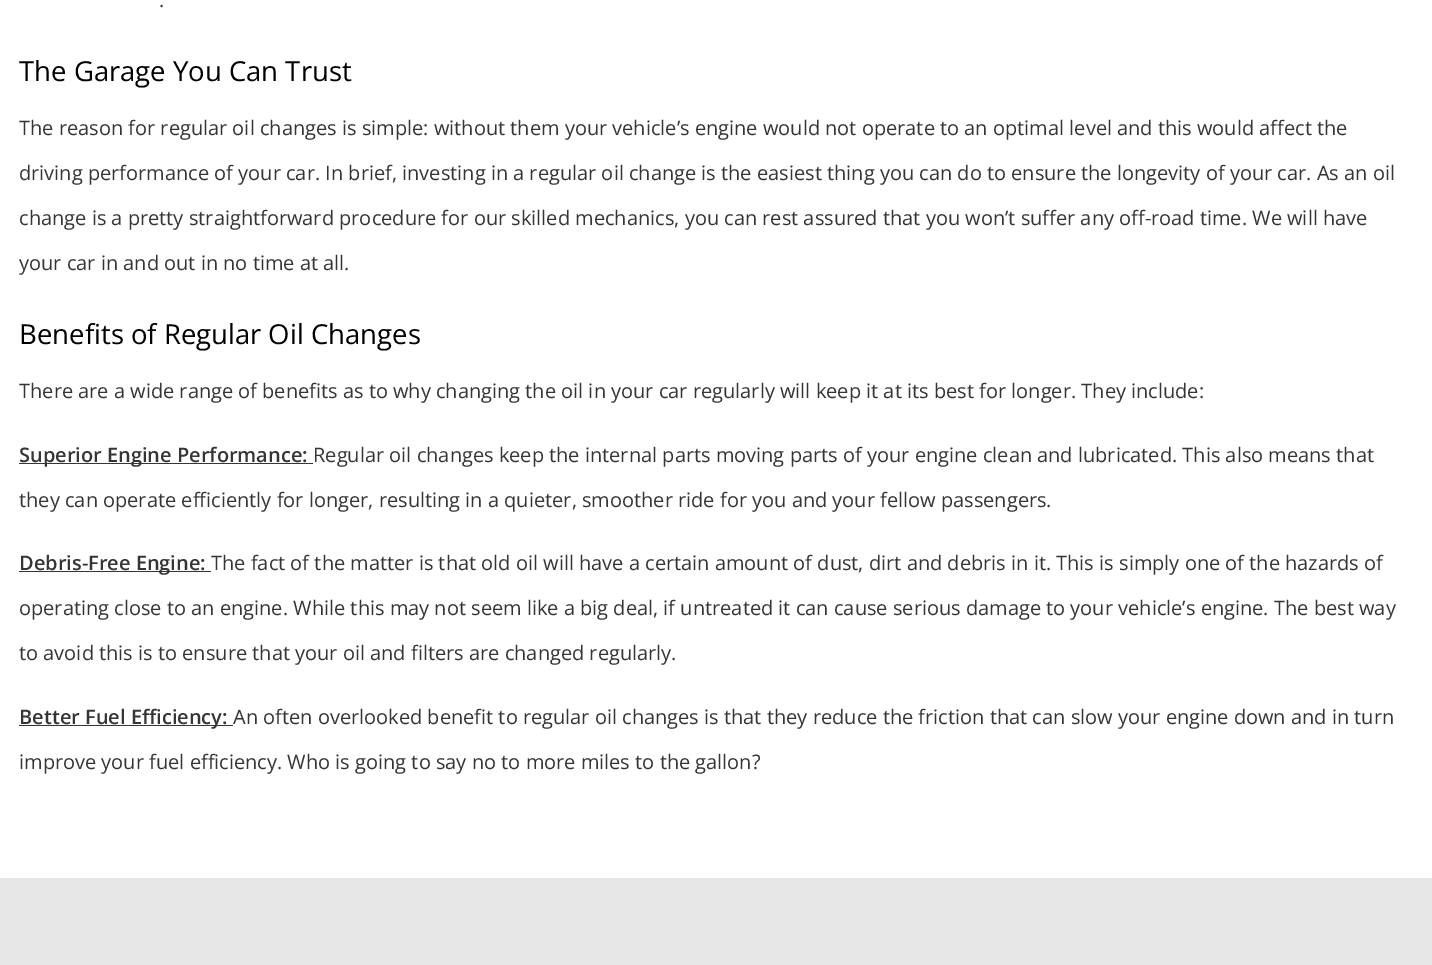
%!PS-Adobe-3.0
%%BoundingBox: 0 0 1432 965
%%LanguageLevel: 3
%%Pages: 1
%%EndComments
%%BeginProlog
/setink { 3 { 255 div 3 1 roll } repeat setrgbcolor } def
/usefont { [ exch dup neg 0 0 3 -1 roll 0 0 ] selectfont } def
/drawtext { setink usefont moveto show } def
/fillbox { setink rectfill } def
%%EndProlog
%%BeginSetup
<< /PageSize [1432 965] >> setpagedevice
%%EndSetup
%%Page: 1 1
0 965 translate 1 -1 scale
4 setmiterlimit
0 0 1432 965 230 230 230 fillbox
0 0 1432 878 255 255 255 fillbox
(.) 159 7 /OpenSans-Regular 20 53 53 53 drawtext
(The Garage You Can Trust) 19 81 /OpenSans-Regular 27.5 0 0 0 drawtext
(The reason for regular oil changes is simple: without them your vehicle’s engine would not operate to an optimal level and this would affect the) 19 135 /OpenSans-Regular 20 53 53 53 drawtext
(driving performance of your car. In brief, investing in a regular oil change is the easiest thing you can do to ensure the longevity of your car. As an oil) 19 180 /OpenSans-Regular 20 53 53 53 drawtext
(change is a pretty straightforward procedure for our skilled mechanics, you can rest assured that you won’t suffer any off-road time. We will have) 19 225 /OpenSans-Regular 20 53 53 53 drawtext
(your car in and out in no time at all.) 19 270 /OpenSans-Regular 20 53 53 53 drawtext
(Benefits of Regular Oil Changes) 19 344 /OpenSans-Regular 27.5 0 0 0 drawtext
(There are a wide range of benefits as to why changing the oil in your car regularly will keep it at its best for longer. They include:) 19 398 /OpenSans-Regular 20 53 53 53 drawtext
19 463 294 1 53 53 53 fillbox
(Superior Engine Performance:) 19 462 /OpenSans-SemiBold 20 53 53 53 drawtext
(Regular oil changes keep the internal parts moving parts of your engine clean and lubricated. This also means that) 313 462 /OpenSans-Regular 20 53 53 53 drawtext
(they can operate efficiently for longer, resulting in a quieter, smoother ride for you and your fellow passengers.) 19 507 /OpenSans-Regular 20 53 53 53 drawtext
19 571 192 1 53 53 53 fillbox
(Debris-Free Engine:) 19 570 /OpenSans-SemiBold 20 53 53 53 drawtext
(The fact of the matter is that old oil will have a certain amount of dust, dirt and debris in it. This is simply one of the hazards of) 211 570 /OpenSans-Regular 20 53 53 53 drawtext
(operating close to an engine. While this may not seem like a big deal, if untreated it can cause serious damage to your vehicle’s engine. The best way) 19 615 /OpenSans-Regular 20 53 53 53 drawtext
(to avoid this is to ensure that your oil and filters are changed regularly.) 19 660 /OpenSans-Regular 20 53 53 53 drawtext
19 725 214 1 53 53 53 fillbox
(Better Fuel Efficiency:) 19 724 /OpenSans-SemiBold 20 53 53 53 drawtext
(An often overlooked benefit to regular oil changes is that they reduce the friction that can slow your engine down and in turn) 233 724 /OpenSans-Regular 20 53 53 53 drawtext
(improve your fuel efficiency. Who is going to say no to more miles to the gallon?) 19 769 /OpenSans-Regular 20 53 53 53 drawtext
showpage
%%EOF
